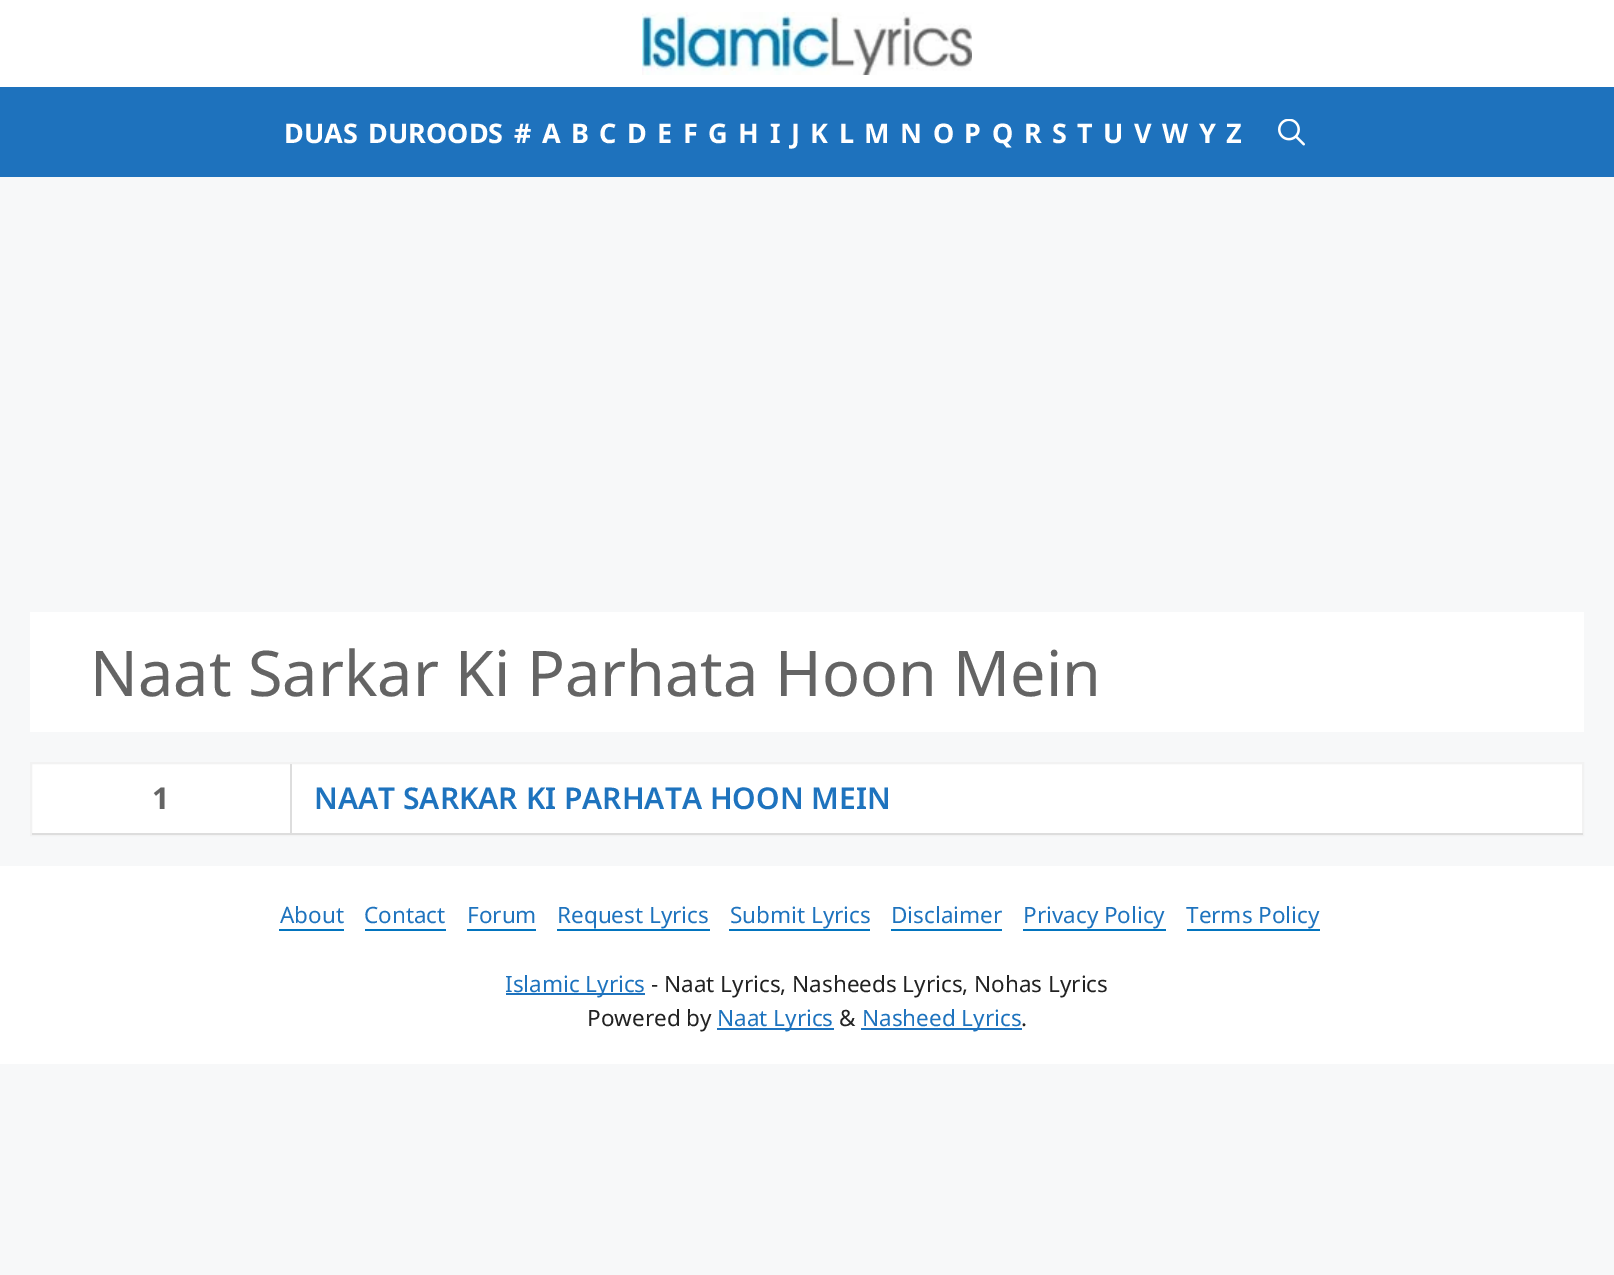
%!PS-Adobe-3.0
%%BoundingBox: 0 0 1614 1275
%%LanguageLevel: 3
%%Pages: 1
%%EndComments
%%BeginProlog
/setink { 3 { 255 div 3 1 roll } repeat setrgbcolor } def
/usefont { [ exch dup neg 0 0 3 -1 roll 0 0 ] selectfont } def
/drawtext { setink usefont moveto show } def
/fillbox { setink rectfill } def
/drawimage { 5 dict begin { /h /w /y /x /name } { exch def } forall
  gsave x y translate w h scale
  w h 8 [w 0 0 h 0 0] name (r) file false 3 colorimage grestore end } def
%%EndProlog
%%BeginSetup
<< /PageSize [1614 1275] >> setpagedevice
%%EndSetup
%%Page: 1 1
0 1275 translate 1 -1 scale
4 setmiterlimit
0 0 1614 1275 247 248 249 fillbox
0 0 1614 87 255 255 255 fillbox
(assets/img1.rgb) 642 12 330 63 drawimage
0 87 1614 90 30 114 189 fillbox
(DUAS) 284 143 /NotoSans-Bold 27 255 255 255 drawtext
(DUROODS) 368 143 /NotoSans-Bold 27 255 255 255 drawtext
(#) 514 143 /NotoSans-Bold 27 255 255 255 drawtext
(A) 542 143 /NotoSans-Bold 27 255 255 255 drawtext
(B) 571 143 /NotoSans-Bold 27 255 255 255 drawtext
(C) 599 143 /NotoSans-Bold 27 255 255 255 drawtext
(D) 627 143 /NotoSans-Bold 27 255 255 255 drawtext
(E) 657 143 /NotoSans-Bold 27 255 255 255 drawtext
(F) 683 143 /NotoSans-Bold 27 255 255 255 drawtext
(G) 708 143 /NotoSans-Bold 27 255 255 255 drawtext
(H) 738 143 /NotoSans-Bold 27 255 255 255 drawtext
(I) 770 143 /NotoSans-Bold 27 255 255 255 drawtext
(J) 791 143 /NotoSans-Bold 27 255 255 255 drawtext
(K) 810 143 /NotoSans-Bold 27 255 255 255 drawtext
(L) 839 143 /NotoSans-Bold 27 255 255 255 drawtext
(M) 864 143 /NotoSans-Bold 27 255 255 255 drawtext
(N) 900 143 /NotoSans-Bold 27 255 255 255 drawtext
(O) 933 143 /NotoSans-Bold 27 255 255 255 drawtext
(P) 964 143 /NotoSans-Bold 27 255 255 255 drawtext
(Q) 992 143 /NotoSans-Bold 27 255 255 255 drawtext
(R) 1024 143 /NotoSans-Bold 27 255 255 255 drawtext
(S) 1052 143 /NotoSans-Bold 27 255 255 255 drawtext
(T) 1077 143 /NotoSans-Bold 27 255 255 255 drawtext
(U) 1103 143 /NotoSans-Bold 27 255 255 255 drawtext
(V) 1134 143 /NotoSans-Bold 27 255 255 255 drawtext
(W) 1162 143 /NotoSans-Bold 27 255 255 255 drawtext
(Y) 1199 143 /NotoSans-Bold 27 255 255 255 drawtext
(Z) 1226 143 /NotoSans-Bold 27 255 255 255 drawtext
(assets/img2.rgb) 1278 119 27 27 drawimage
30 612 1554 120 255 255 255 fillbox
(Naat Sarkar Ki Parhata Hoon Mein) 90 696 /NotoSans-Regular 63 100 100 100 drawtext
32 764 1550 69 255 255 255 fillbox
242 242 242 setink
2 setlinewidth
31 763 1552 72 rectstroke
32 833 1551 2 221 221 221 fillbox
(1) 152 809 /NotoSans-Bold 30 100 100 100 drawtext
290 764 2 69 221 221 221 fillbox
(NAAT SARKAR KI PARHATA HOON MEIN) 314 809 /NotoSans-SemiBold 30 30 115 190 drawtext
0 866 1614 198 255 255 255 fillbox
(About) 280 923 /NotoSans-Regular 22.5 30 115 190 drawtext
279 929 65 2 2 116 190 fillbox
(Contact) 364 923 /NotoSans-Regular 22.5 30 115 190 drawtext
365 929 81 2 2 116 190 fillbox
(Forum) 467 923 /NotoSans-Regular 22.5 30 115 190 drawtext
467 929 69 2 2 116 190 fillbox
(Request Lyrics) 557 923 /NotoSans-Regular 22.5 30 115 190 drawtext
557 929 153 2 2 116 190 fillbox
(Submit Lyrics) 730 923 /NotoSans-Regular 22.5 30 115 190 drawtext
729 929 141 2 2 116 190 fillbox
(Disclaimer) 891 923 /NotoSans-Regular 22.5 30 115 190 drawtext
891 929 111 2 2 116 190 fillbox
(Privacy Policy) 1023 923 /NotoSans-Regular 22.5 30 115 190 drawtext
1023 929 143 2 2 116 190 fillbox
(Terms Policy) 1186 923 /NotoSans-Regular 22.5 30 115 190 drawtext
1187 929 133 2 2 116 190 fillbox
506 993 139 2 30 115 190 fillbox
(Islamic Lyrics) 505 992 /NotoSans-Regular 22.5 30 115 190 drawtext
(- Naat Lyrics, Nasheeds Lyrics, Nohas Lyrics) 651 992 /NotoSans-Regular 22.5 34 34 34 drawtext
(Powered by) 587 1026 /NotoSans-Regular 22.5 34 34 34 drawtext
717 1028 117 2 30 115 190 fillbox
(Naat Lyrics) 717 1026 /NotoSans-Regular 22.5 30 115 190 drawtext
(&) 839 1026 /NotoSans-Regular 22.5 34 34 34 drawtext
861 1028 161 2 30 115 190 fillbox
(Nasheed Lyrics) 862 1026 /NotoSans-Regular 22.5 30 115 190 drawtext
(.) 1021 1026 /NotoSans-Regular 22.5 34 34 34 drawtext
showpage
%%EOF
